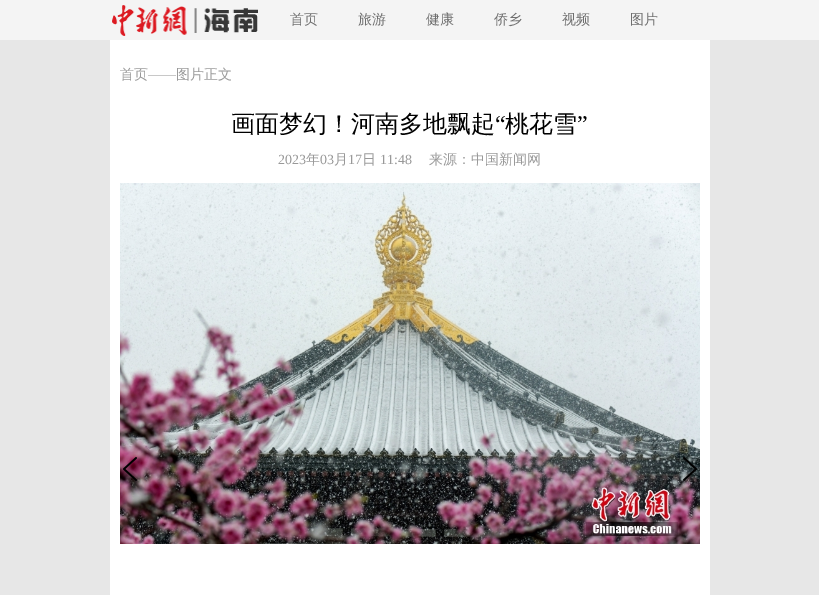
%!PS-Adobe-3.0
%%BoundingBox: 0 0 819 595
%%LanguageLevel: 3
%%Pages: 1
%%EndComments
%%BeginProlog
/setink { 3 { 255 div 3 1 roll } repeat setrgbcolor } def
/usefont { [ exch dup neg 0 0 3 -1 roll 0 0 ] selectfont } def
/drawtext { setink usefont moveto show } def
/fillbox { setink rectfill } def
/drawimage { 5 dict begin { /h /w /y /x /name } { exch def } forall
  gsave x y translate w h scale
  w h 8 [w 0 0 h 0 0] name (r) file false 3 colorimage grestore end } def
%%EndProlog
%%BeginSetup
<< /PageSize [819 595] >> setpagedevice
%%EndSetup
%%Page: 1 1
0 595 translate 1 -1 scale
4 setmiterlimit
0 0 819 595 231 231 231 fillbox
0 0 819 40 244 244 244 fillbox
(assets/img1.rgb) 112 5 146 31 drawimage
(首页) 290 24 /WenQuanYiZenHei-Medium 14 111 111 111 drawtext
(旅游) 358 24 /WenQuanYiZenHei-Medium 14 111 111 111 drawtext
(健康) 426 24 /WenQuanYiZenHei-Medium 14 111 111 111 drawtext
(侨乡) 494 24 /WenQuanYiZenHei-Medium 14 111 111 111 drawtext
(视频) 562 24 /WenQuanYiZenHei-Medium 14 111 111 111 drawtext
(图片) 630 24 /WenQuanYiZenHei-Medium 14 111 111 111 drawtext
110 40 600 555 255 255 255 fillbox
(首页) 120 79 /WenQuanYiZenHei-Medium 14 153 153 153 drawtext
(——) 148 79 /LiberationSerif-Regular 14 153 153 153 drawtext
(图片正文) 176 79 /WenQuanYiZenHei-Medium 14 153 153 153 drawtext
(画面梦幻！河南多地飘起) 231 132 /WenQuanYiZenHei-Medium 24 0 0 0 drawtext
(“) 495 132 /LiberationSerif-Regular 24 0 0 0 drawtext
(桃花雪) 505 132 /WenQuanYiZenHei-Medium 24 0 0 0 drawtext
(”) 577 132 /LiberationSerif-Regular 24 0 0 0 drawtext
(2023) 278 164 /LiberationSerif-Regular 14 153 153 153 drawtext
(年) 306 164 /WenQuanYiZenHei-Medium 14 153 153 153 drawtext
(03) 320 164 /LiberationSerif-Regular 14 153 153 153 drawtext
(月) 334 164 /WenQuanYiZenHei-Medium 14 153 153 153 drawtext
(17) 348 164 /LiberationSerif-Regular 14 153 153 153 drawtext
(日) 362 164 /WenQuanYiZenHei-Medium 14 153 153 153 drawtext
(11:48) 380 164 /LiberationSerif-Regular 14 153 153 153 drawtext
(来源：中国新闻网) 429 164 /WenQuanYiZenHei-Medium 14 153 153 153 drawtext
(assets/img2.rgb) 120 183 580 361 drawimage
(assets/img3.rgb) 123 457 14 24 drawimage
(assets/img4.rgb) 683 457 14 24 drawimage
showpage
%%EOF
